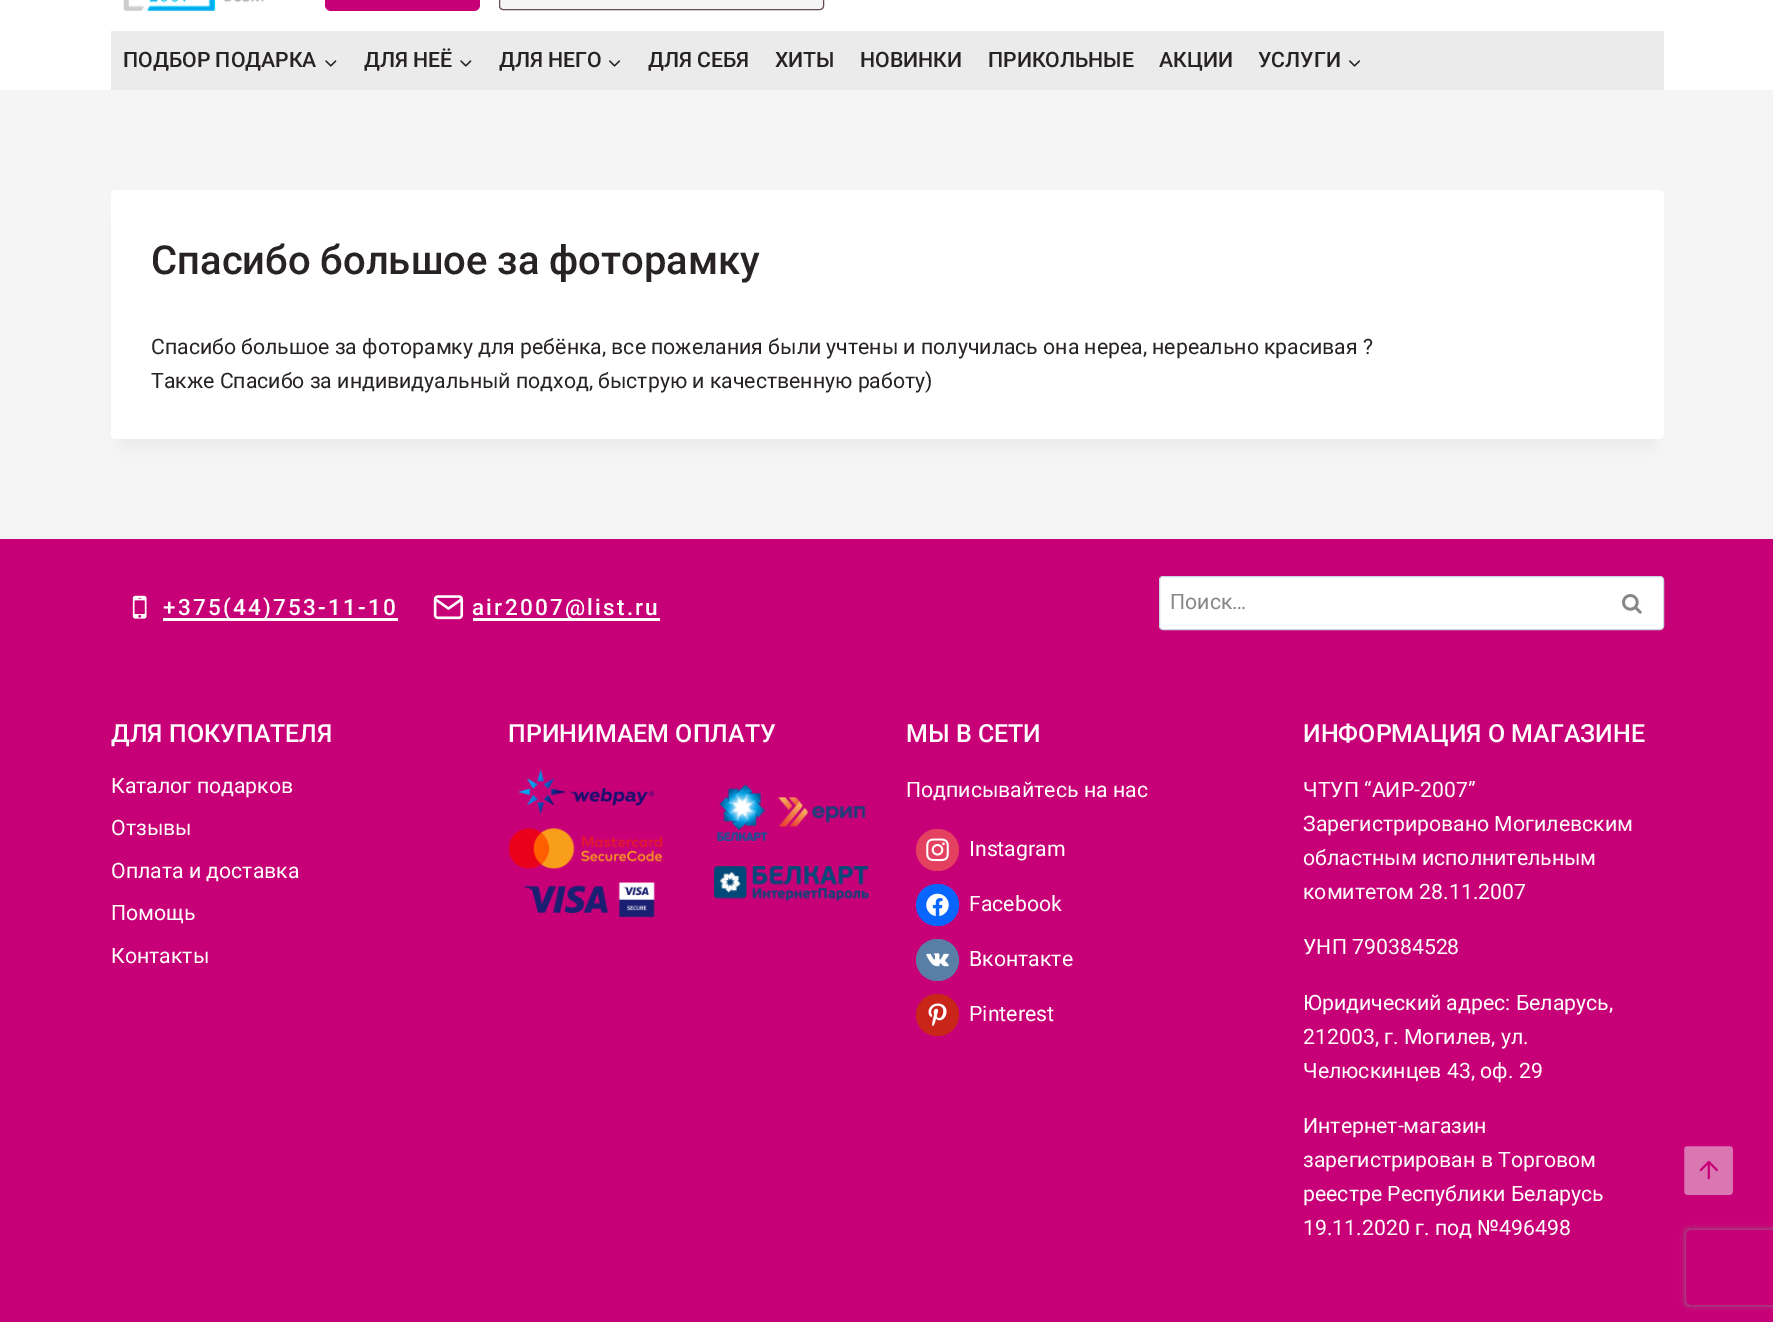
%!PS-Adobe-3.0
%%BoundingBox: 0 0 1773 1322
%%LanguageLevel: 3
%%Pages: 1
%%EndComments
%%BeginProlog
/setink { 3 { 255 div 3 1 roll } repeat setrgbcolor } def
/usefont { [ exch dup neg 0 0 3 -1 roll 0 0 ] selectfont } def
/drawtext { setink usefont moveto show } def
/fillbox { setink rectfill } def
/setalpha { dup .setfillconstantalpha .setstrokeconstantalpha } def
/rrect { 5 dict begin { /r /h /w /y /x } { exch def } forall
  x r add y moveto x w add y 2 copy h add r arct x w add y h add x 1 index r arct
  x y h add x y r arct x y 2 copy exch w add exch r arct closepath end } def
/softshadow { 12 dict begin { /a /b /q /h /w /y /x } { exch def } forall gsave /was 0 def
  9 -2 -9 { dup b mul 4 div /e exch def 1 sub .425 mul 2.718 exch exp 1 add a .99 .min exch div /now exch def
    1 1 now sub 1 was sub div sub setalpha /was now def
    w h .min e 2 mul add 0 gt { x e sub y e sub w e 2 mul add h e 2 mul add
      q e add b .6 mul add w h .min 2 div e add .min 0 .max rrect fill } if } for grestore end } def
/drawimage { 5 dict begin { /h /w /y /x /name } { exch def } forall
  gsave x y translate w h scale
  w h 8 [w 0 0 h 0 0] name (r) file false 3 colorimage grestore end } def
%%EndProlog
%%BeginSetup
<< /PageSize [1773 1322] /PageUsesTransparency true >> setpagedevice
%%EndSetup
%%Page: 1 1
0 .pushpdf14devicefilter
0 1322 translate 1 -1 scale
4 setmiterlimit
0 0 1773 1322 245 245 245 fillbox
0 0 1773 90 255 255 255 fillbox
(assets/img1.rgb) 123 0 141 11 drawimage
200 0 120 setink
325 -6 155 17 6 rrect fill
245 245 245 setink
499.5 -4.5 324 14 3.5 rrect gsave fill grestore
105 75 85 setink
stroke
111 31 1553 59 235 235 235 fillbox
(ПОДБОР ПОДАРКА) 123 67 /Roboto-Medium 21.25 40 35 35 drawtext
(assets/img2.rgb) 325 60 12 7 drawimage
(ДЛЯ НЕЁ) 364 67 /Roboto-Medium 21.25 40 35 35 drawtext
(assets/img2.rgb) 460 60 12 7 drawimage
(ДЛЯ НЕГО) 499 67 /Roboto-Medium 21.25 40 35 35 drawtext
(assets/img3.rgb) 609 60 12 7 drawimage
(ДЛЯ СЕБЯ) 648 67 /Roboto-Medium 21.25 40 35 35 drawtext
(ХИТЫ) 775 67 /Roboto-Medium 21.25 40 35 35 drawtext
(НОВИНКИ) 860 67 /Roboto-Medium 21.25 40 35 35 drawtext
(ПРИКОЛЬНЫЕ) 988 67 /Roboto-Medium 21.25 40 35 35 drawtext
(АКЦИИ) 1159 67 /Roboto-Medium 21.25 40 35 35 drawtext
(УСЛУГИ) 1258 67 /Roboto-Medium 21.25 40 35 35 drawtext
(assets/img3.rgb) 1349 60 12 7 drawimage
0 0 0 setink
124 221 1527 224 0 9.5 0.05 softshadow
255 255 255 setink
111 190 1553 249 5 rrect fill
(Спасибо большое за фоторамку) 151 274 /Roboto-Medium 40 40 35 35 drawtext
(Спасибо большое за фоторамку для ребёнка, все пожелания были учтены и получилась она нереа, нереально красивая ?) 151 354 /Roboto-Regular 21.25 40 35 35 drawtext
(Также Спасибо за индивидуальный подход, быструю и качественную работу\)) 151 388 /Roboto-Regular 21.25 40 35 35 drawtext
0 539 1773 783 200 0 120 fillbox
(assets/img4.rgb) 132 595 15 24 drawimage
163 618 235 3 255 255 255 fillbox
/Roboto-Medium 22.5 usefont
163 615 moveto 2.25 0 (+375\(44\)753-11-10) ashow
(assets/img5.rgb) 433 595 31 25 drawimage
473 618 187 3 255 255 255 fillbox
472 615 moveto 2.25 0 (air2007@list.ru) ashow
1159.5 576.5 504 53 3.5 rrect gsave fill grestore
203 213 224 setink
stroke
(Поиск…) 1170 609 /Roboto-Regular 21.25 135 135 135 drawtext
(assets/img6.rgb) 1622 594 20 20 drawimage
(ДЛЯ ПОКУПАТЕЛЯ) 111 742 /Roboto-Medium 25 255 255 255 drawtext
(Каталог подарков) 111 793 /Roboto-Regular 21.25 255 255 255 drawtext
(Отзывы) 111 835 /Roboto-Regular 21.25 255 255 255 drawtext
(Оплата и доставка) 111 878 /Roboto-Regular 21.25 255 255 255 drawtext
(Помощь) 111 920 /Roboto-Regular 21.25 255 255 255 drawtext
(Контакты) 111 963 /Roboto-Regular 21.25 255 255 255 drawtext
(ПРИНИМАЕМ ОПЛАТУ) 508 742 /Roboto-Medium 25 255 255 255 drawtext
(assets/img7.rgb) 508 769 156 149 drawimage
(assets/img8.rgb) 713 784 156 117 drawimage
(МЫ В СЕТИ) 906 742 /Roboto-Medium 25 255 255 255 drawtext
(Подписывайтесь на нас) 906 797 /Roboto-Regular 21.25 255 255 255 drawtext
228 64 95 setink
916 829 43 42 21 rrect fill
(assets/img9.rgb) 926 838 23 24 drawimage
(Instagram) 969 856 /Roboto-Regular 21.25 255 255 255 drawtext
8 102 255 setink
916 884 43 42 21 rrect fill
(assets/img10.rgb) 926 893 23 23 drawimage
(Facebook) 969 911 /Roboto-Regular 21.25 255 255 255 drawtext
90 127 166 setink
916 939 43 42 21 rrect fill
(assets/img11.rgb) 926 953 23 14 drawimage
(Вконтакте) 969 966 /Roboto-Regular 21.25 255 255 255 drawtext
201 38 25 setink
916 994 43 42 21 rrect fill
(assets/img12.rgb) 928 1003 19 24 drawimage
(Pinterest) 969 1021 /Roboto-Regular 21.25 255 255 255 drawtext
(ИНФОРМАЦИЯ О МАГАЗИНЕ) 1303 742 /Roboto-Medium 25 255 255 255 drawtext
(ЧТУП “АИР-2007”) 1303 797 /Roboto-Regular 21.25 255 255 255 drawtext
(Зарегистрировано Могилевским) 1303 831 /Roboto-Regular 21.25 255 255 255 drawtext
(областным исполнительным) 1303 865 /Roboto-Regular 21.25 255 255 255 drawtext
(комитетом 28.11.2007) 1303 899 /Roboto-Regular 21.25 255 255 255 drawtext
(УНП 790384528) 1303 954 /Roboto-Regular 21.25 255 255 255 drawtext
(Юридический адрес: Беларусь,) 1303 1010 /Roboto-Regular 21.25 255 255 255 drawtext
(212003, г. Могилев, ул.) 1303 1044 /Roboto-Regular 21.25 255 255 255 drawtext
(Челюскинцев 43, оф. 29) 1303 1078 /Roboto-Regular 21.25 255 255 255 drawtext
(Интернет-магазин) 1303 1133 /Roboto-Regular 21.25 255 255 255 drawtext
(зарегистрирован в Торговом) 1303 1167 /Roboto-Regular 21.25 255 255 255 drawtext
(реестре Республики Беларусь) 1303 1201 /Roboto-Regular 21.25 255 255 255 drawtext
(19.11.2020 г. под №496498) 1303 1235 /Roboto-Regular 21.25 255 255 255 drawtext
218 118 178 setink
1682.5 1144.5 52 52 4.5 rrect gsave fill grestore
200 0 120 setink
3 setlinewidth
stroke
(assets/img13.rgb) 1699 1160 19 20 drawimage
gsave
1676 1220 moveto 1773 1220 lineto 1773 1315 lineto 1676 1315 lineto closepath 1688.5 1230 moveto 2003.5 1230 lineto 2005 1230 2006 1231 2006 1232.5 curveto 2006 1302.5 lineto 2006 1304 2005 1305 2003.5 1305 curveto 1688.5 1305 lineto 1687 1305 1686 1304 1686 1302.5 curveto 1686 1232.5 lineto 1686 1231 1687 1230 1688.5 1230 curveto closepath eoclip newpath
128 128 128 setink
1686 1230 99 75 2.5 3 1 softshadow
grestore
.poppdf14devicefilter showpage
%%EOF
